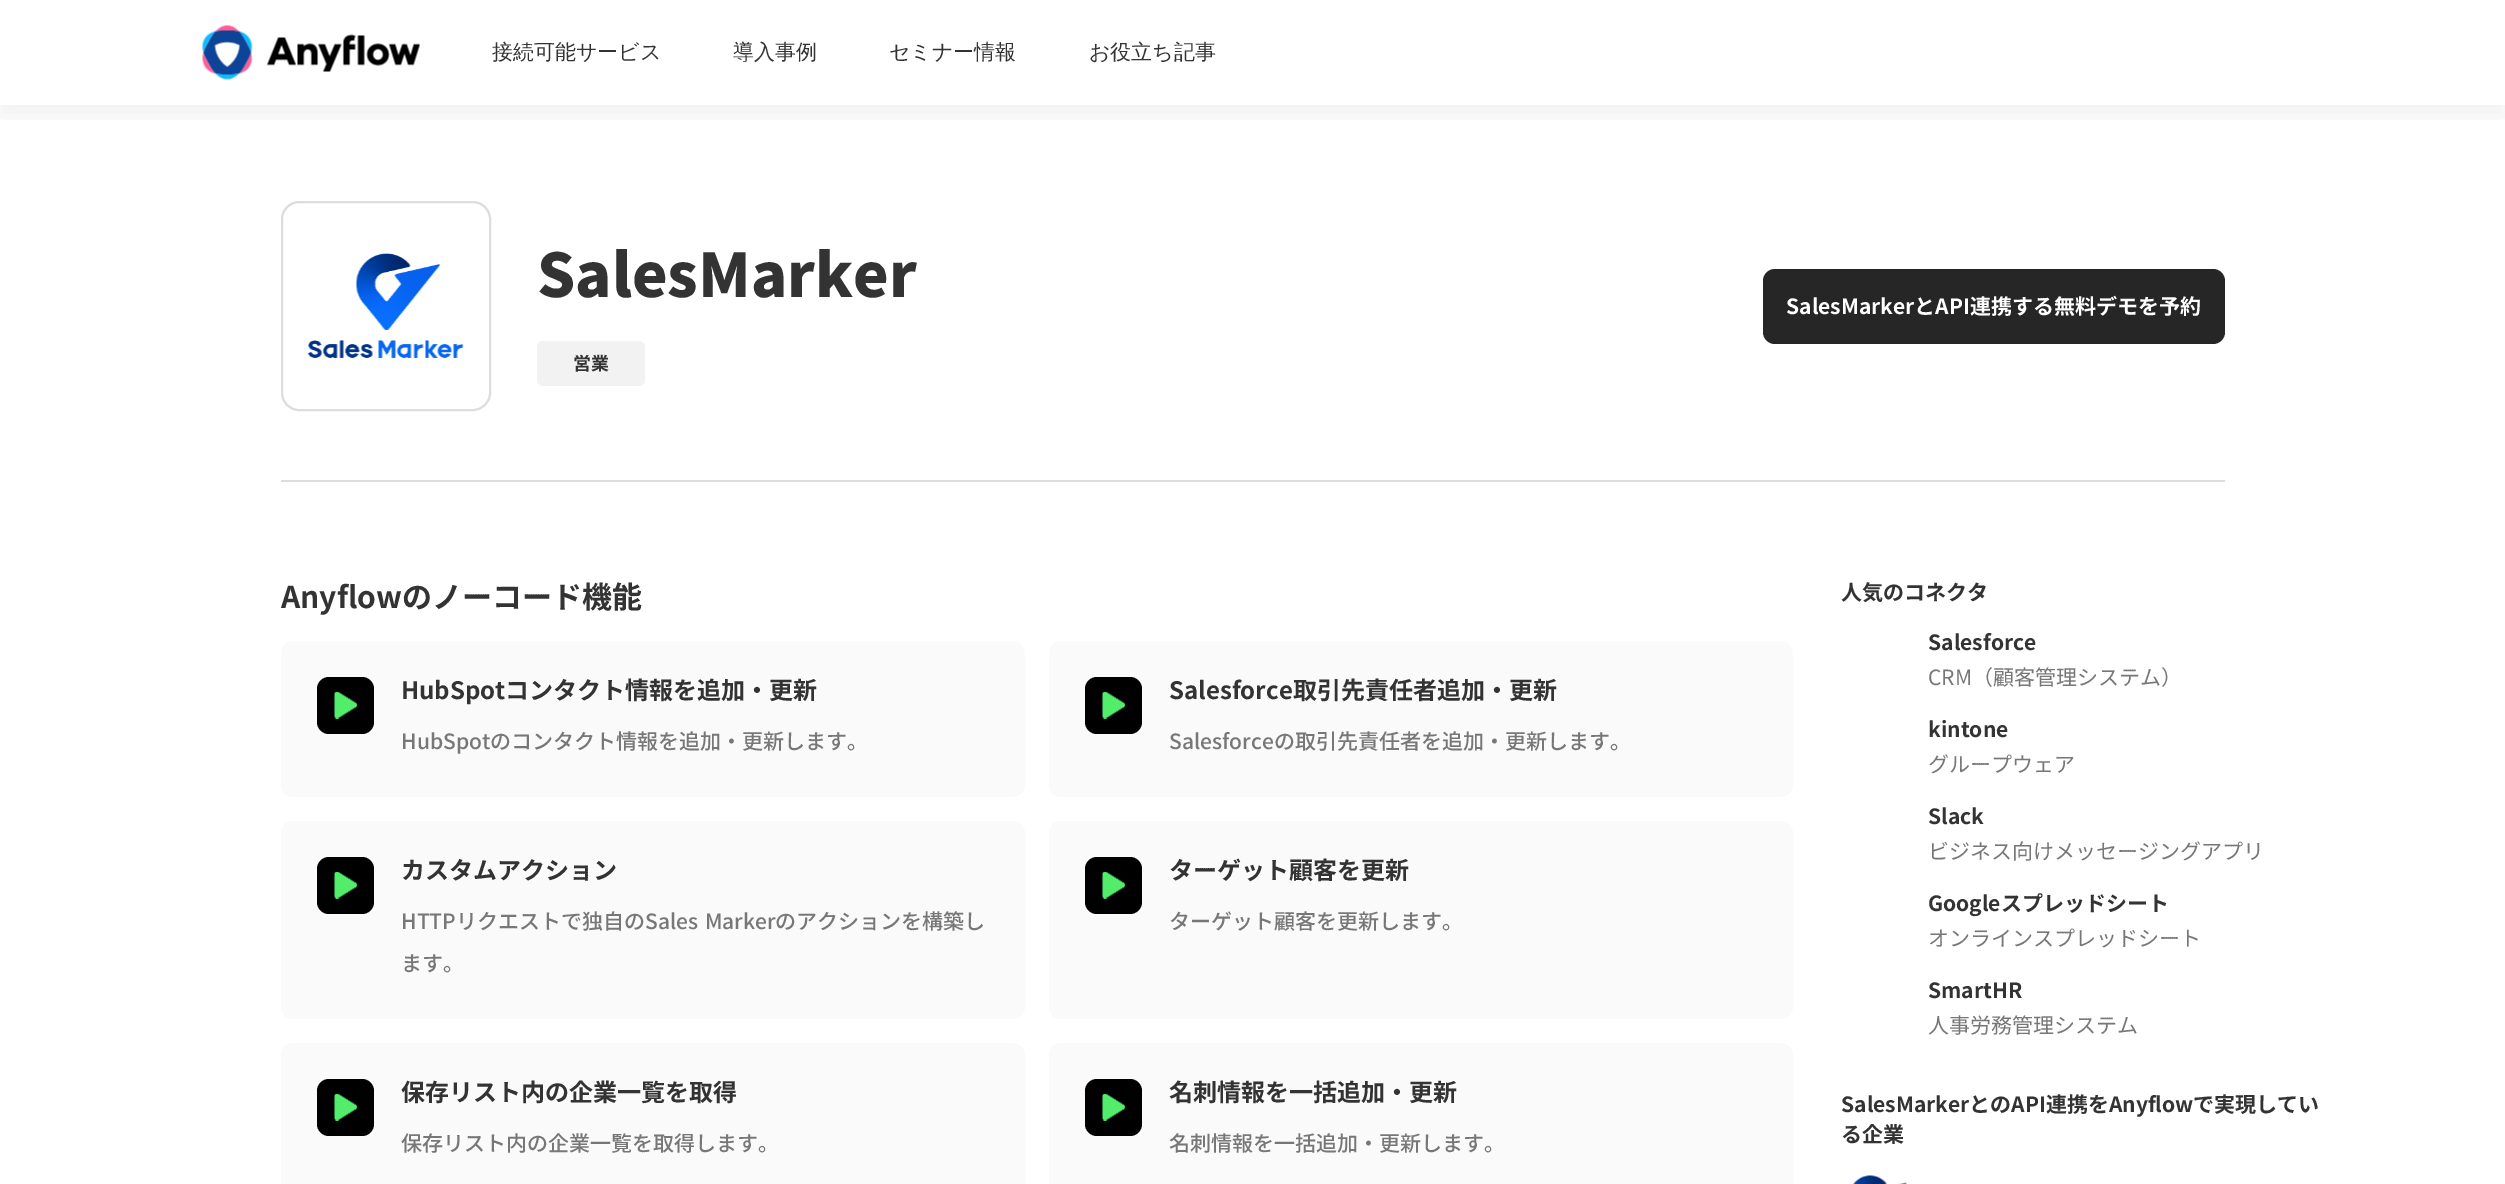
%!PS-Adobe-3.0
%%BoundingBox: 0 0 2505 1184
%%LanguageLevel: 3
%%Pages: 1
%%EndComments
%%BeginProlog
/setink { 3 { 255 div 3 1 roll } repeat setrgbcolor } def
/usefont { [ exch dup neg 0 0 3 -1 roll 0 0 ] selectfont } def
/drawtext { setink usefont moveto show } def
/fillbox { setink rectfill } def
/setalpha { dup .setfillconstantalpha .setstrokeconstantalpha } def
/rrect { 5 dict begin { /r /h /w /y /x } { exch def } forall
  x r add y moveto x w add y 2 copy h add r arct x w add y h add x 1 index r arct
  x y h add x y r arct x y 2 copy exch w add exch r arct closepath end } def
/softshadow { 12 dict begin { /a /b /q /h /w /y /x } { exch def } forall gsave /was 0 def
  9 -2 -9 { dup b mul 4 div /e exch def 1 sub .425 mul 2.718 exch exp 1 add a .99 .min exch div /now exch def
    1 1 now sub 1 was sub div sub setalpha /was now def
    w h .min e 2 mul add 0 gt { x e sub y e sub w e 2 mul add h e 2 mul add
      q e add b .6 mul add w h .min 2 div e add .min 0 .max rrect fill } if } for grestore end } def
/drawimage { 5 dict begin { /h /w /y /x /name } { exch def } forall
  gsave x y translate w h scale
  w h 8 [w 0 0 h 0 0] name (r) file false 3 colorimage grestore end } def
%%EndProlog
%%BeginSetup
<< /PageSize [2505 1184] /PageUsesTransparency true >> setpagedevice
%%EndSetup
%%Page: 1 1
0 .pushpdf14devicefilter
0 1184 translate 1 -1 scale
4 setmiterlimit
0 0 2505 1184 255 255 255 fillbox
gsave
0 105 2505 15 rectclip
0 0 0 setink
0 12 2505 105 0 12 0.05 softshadow
grestore
(assets/img1.rgb) 202 25 218 55 drawimage
(接続可能サービス) 492 59 /WenQuanYiZenHei-Medium 21 51 51 51 drawtext
(導入事例) 733 59 /WenQuanYiZenHei-Medium 21 51 51 51 drawtext
(セミナー情報) 889 59 /WenQuanYiZenHei-Medium 21 51 51 51 drawtext
(お役立ち記事) 1089 59 /WenQuanYiZenHei-Medium 21 51 51 51 drawtext
281 480 1944 2 221 221 221 fillbox
2 setlinewidth
282 202 208 208 17 rrect stroke
(assets/img2.rgb) 307 253 157 105 drawimage
(SalesMarker) 537 297 /NotoSansJP-Black 60 51 51 51 drawtext
242 242 242 setink
537 341 108 45 6 rrect fill
(営業) 573 370 /NotoSansJP-Bold 18 51 51 51 drawtext
38 38 38 setink
1763 269 462 75 12 rrect fill
(SalesMarkerとAPI連携する無料デモを予約) 1786 314 /NotoSansJP-Bold 21 255 255 255 drawtext
(Anyflowのノーコード機能) 281 608 /NotoSansJP-Bold 30 51 51 51 drawtext
250 250 250 setink
281 641 744 156 12 rrect fill
0 0 0 setink
317 677 57 57 12 rrect fill
(assets/img3.rgb) 334 692 23 27 drawimage
(HubSpotコンタクト情報を追加・更新) 401 699 /NotoSansJP-Bold 24 51 51 51 drawtext
(HubSpotのコンタクト情報を追加・更新します。) 401 749 /NotoSansJP-Medium 21 119 119 119 drawtext
250 250 250 setink
1049 641 744 156 12 rrect fill
0 0 0 setink
1085 677 57 57 12 rrect fill
(assets/img4.rgb) 1102 692 23 27 drawimage
(Salesforce取引先責任者追加・更新) 1169 699 /NotoSansJP-Bold 24 51 51 51 drawtext
(Salesforceの取引先責任者を追加・更新します。) 1169 749 /NotoSansJP-Medium 21 119 119 119 drawtext
250 250 250 setink
281 821 744 198 12 rrect fill
0 0 0 setink
317 857 57 57 12 rrect fill
(assets/img3.rgb) 334 872 23 27 drawimage
(カスタムアクション) 401 879 /NotoSansJP-Bold 24 51 51 51 drawtext
/NotoSansJP-Medium 21 usefont
119 119 119 setink
401 929 moveto 2 0 32 (HTTPリクエストで独自のSales Markerのアクションを構築し) widthshow
(ます。) 401 971 /NotoSansJP-Medium 21 119 119 119 drawtext
250 250 250 setink
1049 821 744 198 12 rrect fill
0 0 0 setink
1085 857 57 57 12 rrect fill
(assets/img4.rgb) 1102 872 23 27 drawimage
(ターゲット顧客を更新) 1169 879 /NotoSansJP-Bold 24 51 51 51 drawtext
(ターゲット顧客を更新します。) 1169 929 /NotoSansJP-Medium 21 119 119 119 drawtext
250 250 250 setink
281 1043 744 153 12 rrect fill
0 0 0 setink
317 1079 57 57 12 rrect fill
(assets/img3.rgb) 334 1094 23 27 drawimage
(保存リスト内の企業一覧を取得) 401 1101 /NotoSansJP-Bold 24 51 51 51 drawtext
(保存リスト内の企業一覧を取得します。) 401 1151 /NotoSansJP-Medium 21 119 119 119 drawtext
250 250 250 setink
1049 1043 744 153 12 rrect fill
0 0 0 setink
1085 1079 57 57 12 rrect fill
(assets/img4.rgb) 1102 1094 23 27 drawimage
(名刺情報を一括追加・更新) 1169 1101 /NotoSansJP-Bold 24 51 51 51 drawtext
(名刺情報を一括追加・更新します。) 1169 1151 /NotoSansJP-Medium 21 119 119 119 drawtext
(人気のコネクタ) 1841 600 /NotoSansJP-Bold 21 51 51 51 drawtext
(Salesforce) 1928 650 /NotoSansJP-Bold 21 51 51 51 drawtext
(CRM（顧客管理システム）) 1928 685 /NotoSansJP-Regular 21 119 119 119 drawtext
(kintone) 1928 737 /NotoSansJP-Bold 21 51 51 51 drawtext
(グループウェア) 1928 772 /NotoSansJP-Regular 21 119 119 119 drawtext
(Slack) 1928 824 /NotoSansJP-Bold 21 51 51 51 drawtext
(ビジネス向けメッセージングアプリ) 1928 859 /NotoSansJP-Regular 21 119 119 119 drawtext
(Googleスプレッドシート) 1928 911 /NotoSansJP-Bold 21 51 51 51 drawtext
(オンラインスプレッドシート) 1928 946 /NotoSansJP-Regular 21 119 119 119 drawtext
(SmartHR) 1928 998 /NotoSansJP-Bold 21 51 51 51 drawtext
(人事労務管理システム) 1928 1033 /NotoSansJP-Regular 21 119 119 119 drawtext
(SalesMarkerとのAPI連携をAnyflowで実現してい) 1841 1112 /NotoSansJP-Bold 21 51 51 51 drawtext
(る企業) 1841 1142 /NotoSansJP-Bold 21 51 51 51 drawtext
(assets/img5.rgb) 1852 1175 55 9 drawimage
.poppdf14devicefilter showpage
%%EOF
